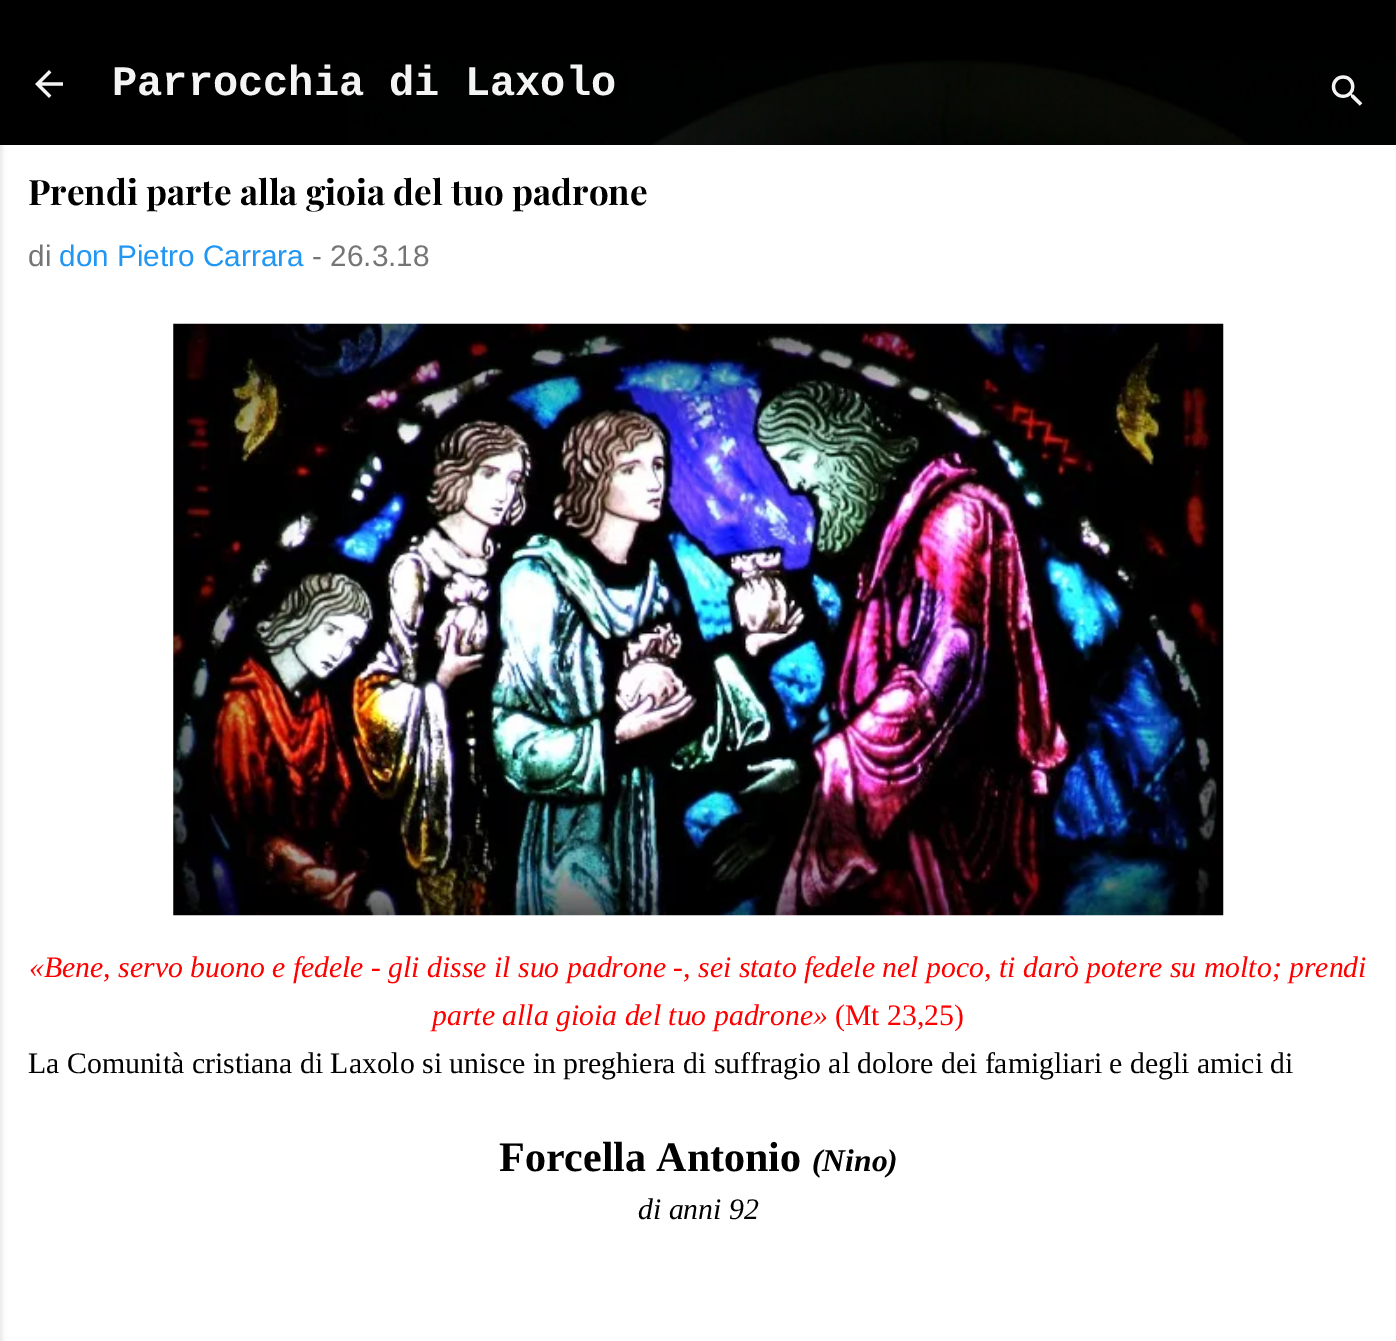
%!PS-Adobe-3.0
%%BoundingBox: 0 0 1396 1341
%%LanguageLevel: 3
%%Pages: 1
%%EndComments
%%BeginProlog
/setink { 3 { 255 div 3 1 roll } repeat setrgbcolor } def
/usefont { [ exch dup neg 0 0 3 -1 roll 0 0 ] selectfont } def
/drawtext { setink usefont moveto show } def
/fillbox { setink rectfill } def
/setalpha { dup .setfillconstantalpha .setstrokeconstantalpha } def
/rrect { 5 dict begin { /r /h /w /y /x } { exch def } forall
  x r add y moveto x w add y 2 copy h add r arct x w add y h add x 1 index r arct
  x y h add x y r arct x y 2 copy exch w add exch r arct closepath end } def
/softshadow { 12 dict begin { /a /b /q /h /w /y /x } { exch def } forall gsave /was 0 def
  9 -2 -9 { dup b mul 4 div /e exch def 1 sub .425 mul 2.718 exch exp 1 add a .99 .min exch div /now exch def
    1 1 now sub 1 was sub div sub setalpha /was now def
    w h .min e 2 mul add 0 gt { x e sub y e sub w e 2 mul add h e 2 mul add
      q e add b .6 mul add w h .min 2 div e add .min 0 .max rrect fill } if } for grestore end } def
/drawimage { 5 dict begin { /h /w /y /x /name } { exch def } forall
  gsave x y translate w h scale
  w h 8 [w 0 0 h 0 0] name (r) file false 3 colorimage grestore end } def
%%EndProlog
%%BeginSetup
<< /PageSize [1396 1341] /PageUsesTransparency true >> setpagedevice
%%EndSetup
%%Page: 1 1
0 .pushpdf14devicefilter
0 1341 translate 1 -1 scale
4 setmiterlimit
0 0 1396 1341 0 0 0 fillbox
0 145 1396 1196 255 255 255 fillbox
0 0 0 setink
-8 2 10 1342 0 2.5 0.1 softshadow
(assets/img1.rgb) 347 60 1049 85 drawimage
(assets/img2.rgb) 35 70 28 28 drawimage
(Parrocchia di Laxolo) 112 95 /LiberationMono-Bold 42 244 244 244 drawtext
(assets/img3.rgb) 1331 75 32 31 drawimage
(Prendi parte alla gioia del tuo padrone) 28 205 /PlayfairDisplay-Bold 35 0 0 0 drawtext
(di) 28 266 /LiberationSans-Regular 29.75 117 117 117 drawtext
(don Pietro Carrara) 59 266 /LiberationSans-Regular 29.75 33 150 243 drawtext
(- 26.3.18) 312 266 /LiberationSans-Regular 29.75 117 117 117 drawtext
(assets/img4.rgb) 173 323 1051 593 drawimage
(«Bene, servo buono e fedele - gli disse il suo padrone -, sei stato fedele nel poco, ti darò potere su molto; prendi) 29 977 /LiberationSerif-Italic 29.75 255 0 0 drawtext
(parte alla gioia del tuo padrone») 432 1025 /LiberationSerif-Italic 29.75 255 0 0 drawtext
(\(Mt 23,25\)) 835 1025 /LiberationSerif-Regular 29.75 255 0 0 drawtext
(La Comunità cristiana di Laxolo si unisce in preghiera di suffragio al dolore dei famigliari e degli amici di) 28 1073 /LiberationSerif-Regular 29.75 0 0 0 drawtext
(Forcella Antonio) 499 1171 /LiberationSerif-Bold 42 0 0 0 drawtext
(\(Nino\)) 812 1171 /LiberationSerif-BoldItalic 31.5 0 0 0 drawtext
(di anni 92) 638 1219 /LiberationSerif-Italic 29.75 0 0 0 drawtext
.poppdf14devicefilter showpage
%%EOF
